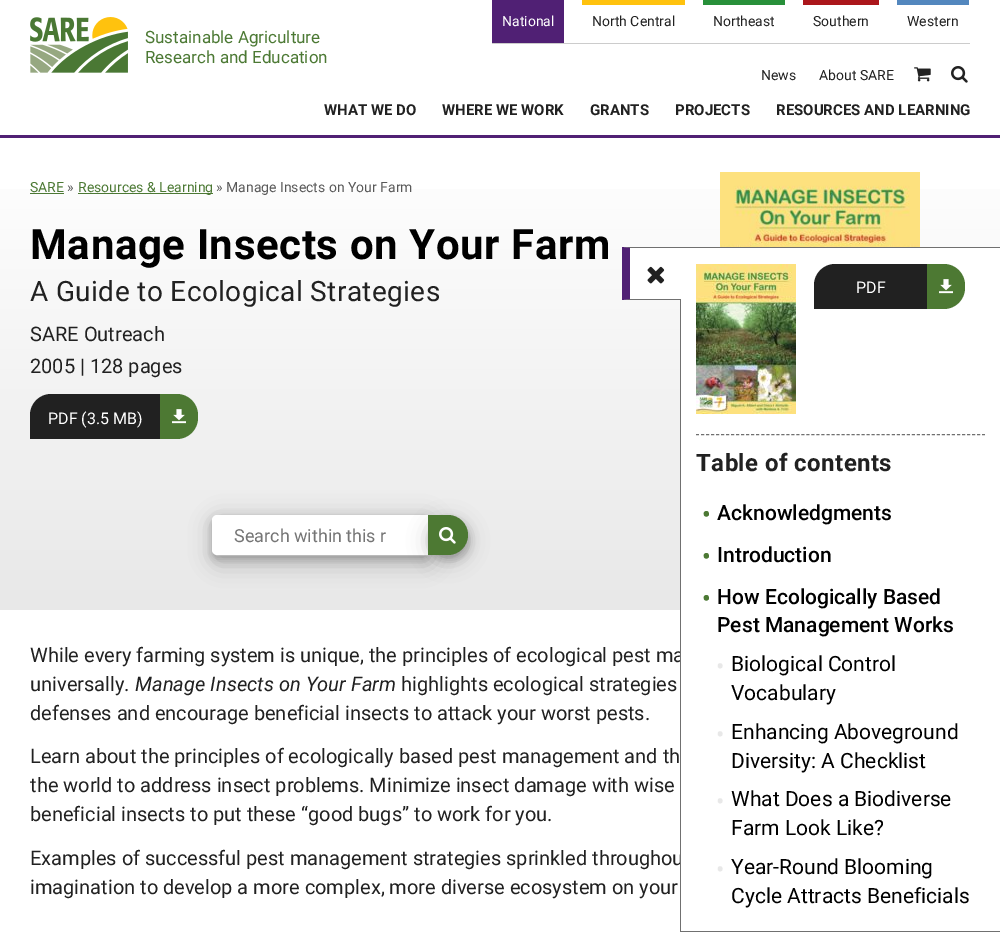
%!PS-Adobe-3.0
%%BoundingBox: 0 0 1000 952
%%LanguageLevel: 3
%%Pages: 1
%%EndComments
%%BeginProlog
/setink { 3 { 255 div 3 1 roll } repeat setrgbcolor } def
/usefont { [ exch dup neg 0 0 3 -1 roll 0 0 ] selectfont } def
/drawtext { setink usefont moveto show } def
/fillbox { setink rectfill } def
/setalpha { dup .setfillconstantalpha .setstrokeconstantalpha } def
/rrect { 5 dict begin { /r /h /w /y /x } { exch def } forall
  x r add y moveto x w add y 2 copy h add r arct x w add y h add x 1 index r arct
  x y h add x y r arct x y 2 copy exch w add exch r arct closepath end } def
/softshadow { 12 dict begin { /a /b /q /h /w /y /x } { exch def } forall gsave /was 0 def
  9 -2 -9 { dup b mul 4 div /e exch def 1 sub .425 mul 2.718 exch exp 1 add a .99 .min exch div /now exch def
    1 1 now sub 1 was sub div sub setalpha /was now def
    w h .min e 2 mul add 0 gt { x e sub y e sub w e 2 mul add h e 2 mul add
      q e add b .6 mul add w h .min 2 div e add .min 0 .max rrect fill } if } for grestore end } def
/drawimage { 5 dict begin { /h /w /y /x /name } { exch def } forall
  gsave x y translate w h scale
  w h 8 [w 0 0 h 0 0] name (r) file false 3 colorimage grestore end } def
%%EndProlog
%%BeginSetup
<< /PageSize [1000 952] /PageUsesTransparency true >> setpagedevice
%%EndSetup
%%Page: 1 1
0 .pushpdf14devicefilter
0 952 translate 1 -1 scale
4 setmiterlimit
0 0 1000 952 255 255 255 fillbox
0 135 1000 3 80 32 116 fillbox
492 43 478 1 204 204 204 fillbox
492 0 72 43 80 32 116 fillbox
(National) 502 26 /Roboto-Regular 14 255 255 255 drawtext
582 0 103 5 255 194 14 fillbox
(North Central) 592 26 /Roboto-Regular 14 33 33 33 drawtext
703 0 82 5 40 144 58 fillbox
(Northeast) 713 26 /Roboto-Regular 14 33 33 33 drawtext
803 0 76 5 171 22 27 fillbox
(Southern) 813 26 /Roboto-Regular 14 33 33 33 drawtext
897 0 72 5 83 135 190 fillbox
(Western) 907 26 /Roboto-Regular 14 33 33 33 drawtext
(assets/img1.rgb) 30 17 98 56 drawimage
(Sustainable Agriculture) 145 43 /Roboto-Regular 17 76 121 52 drawtext
(Research and Education) 145 63 /Roboto-Regular 17 76 121 52 drawtext
(News) 761 80 /Roboto-Regular 14 33 33 33 drawtext
(About SARE) 819 80 /Roboto-Regular 14 33 33 33 drawtext
(assets/img2.rgb) 914 67 17 15 drawimage
(assets/img3.rgb) 951 66 17 17 drawimage
(WHAT WE DO) 324 115 /Roboto-Bold 15 33 33 33 drawtext
(WHERE WE WORK) 442 115 /Roboto-Bold 15 33 33 33 drawtext
(GRANTS) 590 115 /Roboto-Bold 15 33 33 33 drawtext
(PROJECTS) 675 115 /Roboto-Bold 15 33 33 33 drawtext
(RESOURCES AND LEARNING) 776 115 /Roboto-Bold 15 33 33 33 drawtext
gsave 0 189 moveto 1000 189 lineto 1000 610 lineto 0 610 lineto closepath clip newpath
<< /ShadingType 2 /ColorSpace /DeviceRGB /Coords [500 138 500 610] /Extend [true true] /Function << /FunctionType 2 /Domain [0 1] /C0 [1 1 1] /C1 [0.91 0.91 0.91] /N 1 >> >> shfill grestore
(SARE) 30 192 /Roboto-Regular 14 76 121 52 drawtext
30 193 34 1 76 121 52 fillbox
(») 67 192 /Roboto-Regular 14 89 89 89 drawtext
78 193 135 1 76 121 52 fillbox
(Resources & Learning) 78 192 /Roboto-Regular 14 76 121 52 drawtext
(» Manage Insects on Your Farm) 216 192 /Roboto-Regular 14 89 89 89 drawtext
/Roboto-Bold 42 usefont
0 0 0 setink
30 259 moveto 0.6 0 (Manage Insects on Your Farm) ashow
/Roboto-Regular 28 usefont
33 33 33 setink
30 301 moveto 0.4 0 (A Guide to Ecological Strategies) ashow
(SARE Outreach) 30 341 /Roboto-Regular 20 33 33 33 drawtext
(2005 | 128 pages) 30 373 /Roboto-Regular 20 33 33 33 drawtext
51 394 moveto 161 394 lineto 161 439 lineto 30 439 lineto 30 415 lineto 30 403.5 39.5 394 51 394 curveto closepath fill
(PDF \(3.5 MB\)) 48 424 /Roboto-Regular 16 255 255 255 drawtext
77 121 51 setink
160 394 moveto 177 394 lineto 188.5 394 198 403.5 198 415 curveto 198 418 lineto 198 429.5 188.5 439 177 439 curveto 160 439 lineto closepath fill
(assets/img4.rgb) 172 409 14 15 drawimage
0 0 0 setink
210 516 226 50 10 10 0.19 softshadow
212 519 216 40 5 4 0.2 softshadow
255 255 255 setink
217 516 moveto 427 516 lineto 427 554 lineto 217 554 lineto 215 554 213 552 213 550 curveto 213 520 lineto 213 518 215 516 217 516 curveto closepath gsave fill grestore
2 setlinewidth
stroke
(Search within this r) 234 542 /Roboto-Regular 18 117 117 117 drawtext
0 0 0 setink
428 521 40 40 20 10 0.19 softshadow
430 520 40 40 20 4 0.2 softshadow
77 121 51 setink
428 515 moveto 448 515 lineto 459 515 468 524 468 535 curveto 468 546 459 555 448 555 curveto 428 555 lineto closepath fill
(assets/img5.rgb) 439 527 17 17 drawimage
(assets/img6.rgb) 720 172 200 75 drawimage
(While every farming system is unique, the principles of ecological pest ma) 30 662 /Roboto-Regular 20 33 33 33 drawtext
(Examples of successful pest management strategies sprinkled throughou) 30 865 /Roboto-Regular 20 33 33 33 drawtext
681 248 319 617 255 255 255 fillbox
680 247 320 1 112 112 112 fillbox
680 931 320 1 112 112 112 fillbox
680 300 1 632 112 112 112 fillbox
622 247 59 53 255 255 255 fillbox
112 112 112 setink
622 247 moveto 681 247 lineto 681 248 lineto 630 248 lineto closepath 681 300 moveto 622 300 lineto 630 299 lineto 681 299 lineto closepath fill
80 32 116 setink
622 300 moveto 622 247 lineto 630 248 lineto 630 299 lineto closepath fill
(assets/img7.rgb) 647 266 18 18 drawimage
112 112 112 setink
1 setlinewidth
[3 2.02] 0 setdash
696 434.5 moveto 985 434.5 lineto stroke
(assets/img8.rgb) 696 264 100 150 drawimage
33 33 33 setink
835 264 moveto 928 264 lineto 928 309 lineto 814 309 lineto 814 285 lineto 814 273.5 823.5 264 835 264 curveto closepath fill
(PDF) 856 293 /Roboto-Regular 16 255 255 255 drawtext
77 121 51 setink
927 264 moveto 944 264 lineto 955.5 264 965 273.5 965 285 curveto 965 288 lineto 965 299.5 955.5 309 944 309 curveto 927 309 lineto closepath fill
(assets/img4.rgb) 939 279 14 15 drawimage
/Roboto-Bold 24 usefont
33 33 33 setink
696 471 moveto 0.4 0 (Table of contents) ashow
(•) 702 523 /Roboto-Medium 25 76 121 52 drawtext
(Acknowledgments) 717 520 /Roboto-Medium 21 0 0 0 drawtext
(•) 702 565 /Roboto-Medium 25 76 121 52 drawtext
(Introduction) 717 562 /Roboto-Medium 21 0 0 0 drawtext
(•) 702 607 /Roboto-Medium 25 76 121 52 drawtext
(How Ecologically Based) 717 604 /Roboto-Medium 21 0 0 0 drawtext
(Pest Management Works) 717 632 /Roboto-Medium 21 0 0 0 drawtext
(•) 716 675 /Roboto-Regular 25 232 232 232 drawtext
(Biological Control) 731 671 /Roboto-Regular 21 0 0 0 drawtext
(Vocabulary) 731 700 /Roboto-Regular 21 0 0 0 drawtext
(•) 716 743 /Roboto-Regular 25 232 232 232 drawtext
(Enhancing Aboveground) 731 739 /Roboto-Regular 21 0 0 0 drawtext
(Diversity: A Checklist) 731 768 /Roboto-Regular 21 0 0 0 drawtext
(•) 716 810 /Roboto-Regular 25 232 232 232 drawtext
(What Does a Biodiverse) 731 806 /Roboto-Regular 21 0 0 0 drawtext
(Farm Look Like?) 731 835 /Roboto-Regular 21 0 0 0 drawtext
(•) 716 878 /Roboto-Regular 25 232 232 232 drawtext
(Year-Round Blooming) 731 874 /Roboto-Regular 21 0 0 0 drawtext
(Cycle Attracts Beneficials) 731 903 /Roboto-Regular 21 0 0 0 drawtext
(universally.) 30 691 /Roboto-Regular 20 33 33 33 drawtext
(Manage Insects on Your Farm) 135 691 /Roboto-Italic 20 33 33 33 drawtext
(highlights ecological strategies) 401 691 /Roboto-Regular 20 33 33 33 drawtext
(defenses and encourage beneficial insects to attack your worst pests.) 30 720 /Roboto-Regular 20 33 33 33 drawtext
(Learn about the principles of ecologically based pest management and th) 30 763 /Roboto-Regular 20 33 33 33 drawtext
(the world to address insect problems. Minimize insect damage with wise) 30 792 /Roboto-Regular 20 33 33 33 drawtext
(beneficial insects to put these “good bugs” to work for you.) 30 821 /Roboto-Regular 20 33 33 33 drawtext
(imagination to develop a more complex, more diverse ecosystem on your) 30 894 /Roboto-Regular 20 33 33 33 drawtext
.poppdf14devicefilter showpage
%%EOF
